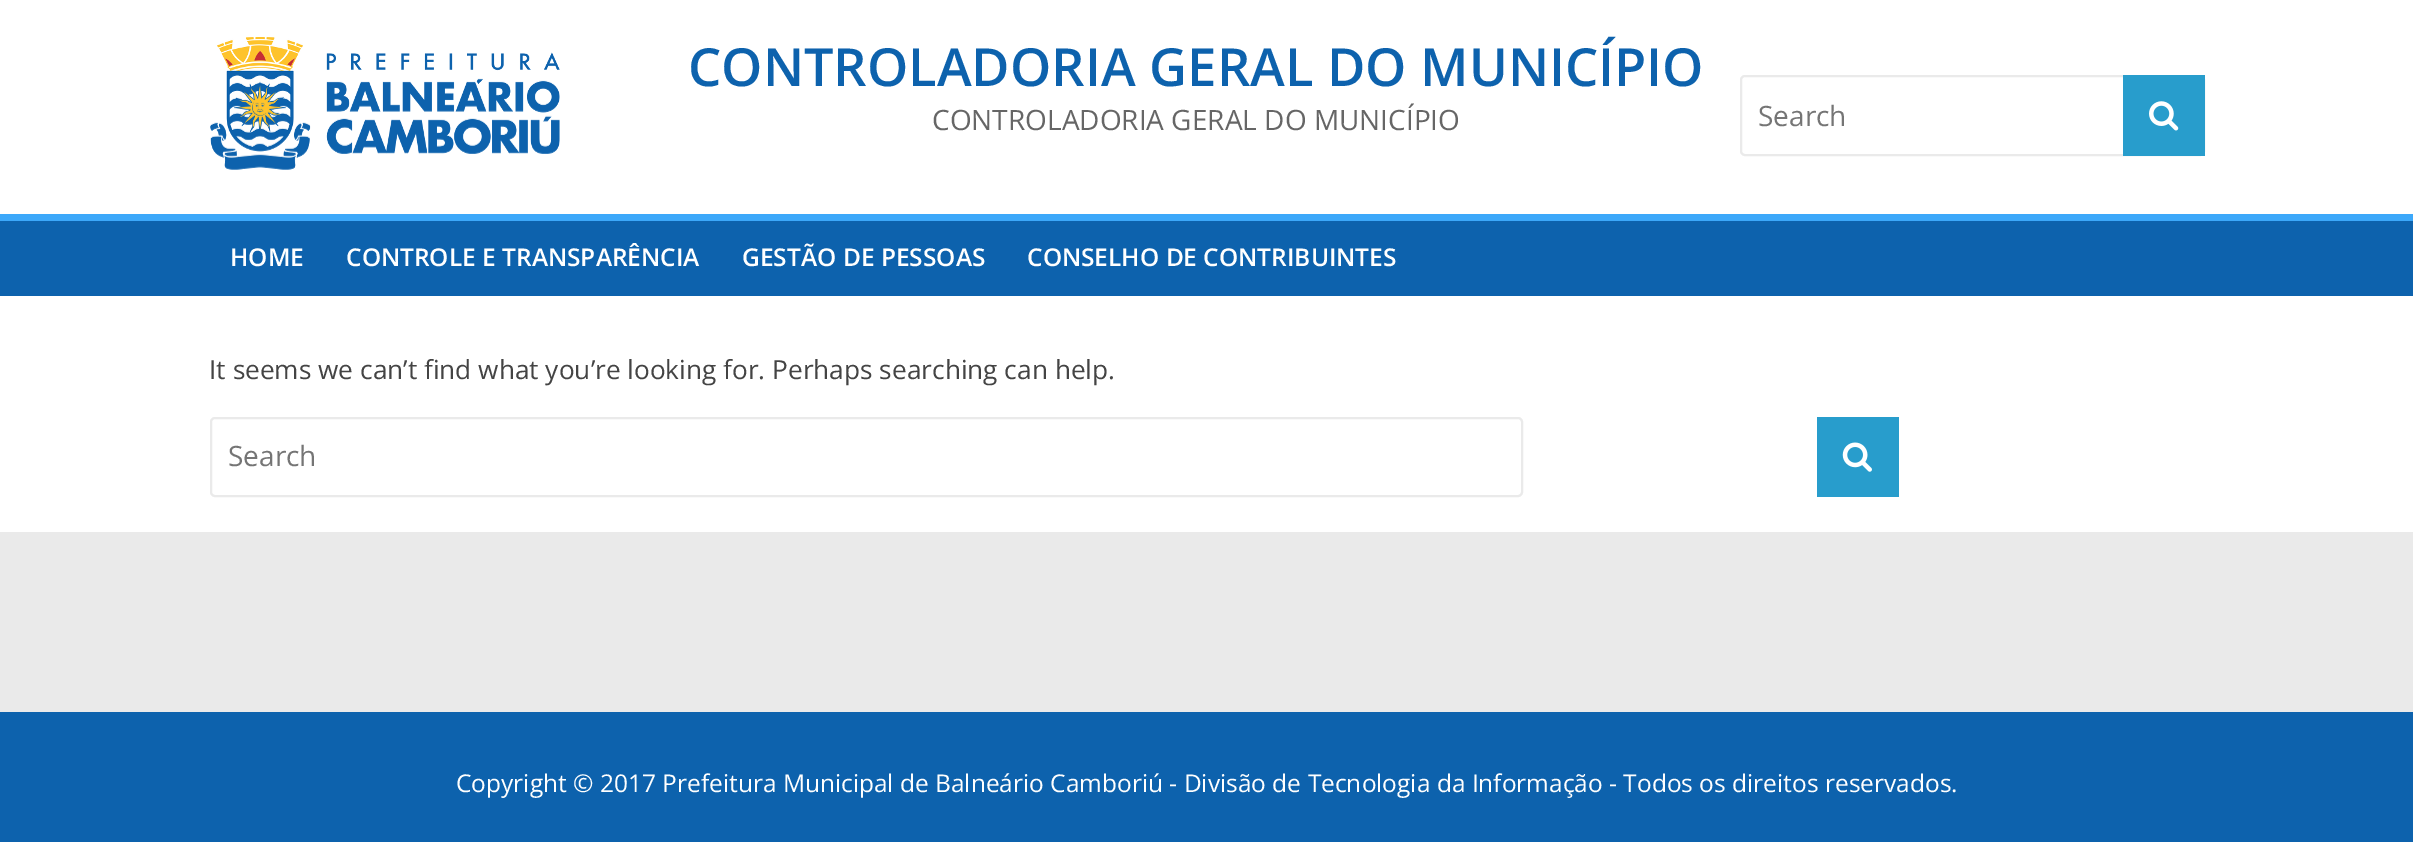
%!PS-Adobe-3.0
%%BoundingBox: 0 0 2413 842
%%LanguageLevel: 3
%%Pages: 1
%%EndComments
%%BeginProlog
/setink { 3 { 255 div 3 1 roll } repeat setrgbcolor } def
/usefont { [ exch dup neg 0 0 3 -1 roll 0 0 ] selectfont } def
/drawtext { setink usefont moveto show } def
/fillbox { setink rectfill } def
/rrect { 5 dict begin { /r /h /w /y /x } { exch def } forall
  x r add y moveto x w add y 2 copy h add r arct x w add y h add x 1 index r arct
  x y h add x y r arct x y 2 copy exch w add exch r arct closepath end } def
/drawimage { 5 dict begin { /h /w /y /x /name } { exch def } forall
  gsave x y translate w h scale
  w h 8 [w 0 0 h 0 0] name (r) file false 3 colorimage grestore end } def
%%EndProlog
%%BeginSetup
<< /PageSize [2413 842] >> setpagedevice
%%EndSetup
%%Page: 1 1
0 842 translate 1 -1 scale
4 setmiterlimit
0 0 2413 842 234 234 234 fillbox
0 0 2413 214 255 255 255 fillbox
(assets/img1.rgb) 210 37 350 133 drawimage
(CONTROLADORIA GERAL DO MUNICÍPIO) 688 86 /OpenSans-SemiBold 52.5 13 98 173 drawtext
(CONTROLADORIA GERAL DO MUNICÍPIO) 932 130 /OpenSans-Regular 28 102 102 102 drawtext
234 234 234 setink
2 setlinewidth
1741 76 463 79 4 rrect stroke
(Search) 1758 126 /OpenSans-Regular 28 117 117 117 drawtext
2123 75 82 81 40 157 204 fillbox
(assets/img2.rgb) 2149 101 30 30 drawimage
0 221 2413 75 13 98 173 fillbox
0 214 2413 7 60 168 250 fillbox
(HOME) 230 266 /OpenSans-SemiBold 24.5 255 255 255 drawtext
(CONTROLE E TRANSPARÊNCIA) 346 266 /OpenSans-SemiBold 24.5 255 255 255 drawtext
(GESTÃO DE PESSOAS) 742 266 /OpenSans-SemiBold 24.5 255 255 255 drawtext
(CONSELHO DE CONTRIBUINTES) 1027 266 /OpenSans-SemiBold 24.5 255 255 255 drawtext
0 296 2413 236 255 255 255 fillbox
(It seems we can’t find what you’re looking for. Perhaps searching can help.) 209 379 /OpenSans-Regular 26.25 68 68 68 drawtext
234 234 234 setink
211 418 1311 78 4 rrect stroke
(Search) 228 466 /OpenSans-Regular 28 117 117 117 drawtext
1817 417 82 80 40 157 204 fillbox
(assets/img3.rgb) 1842 442 30 30 drawimage
0 712 2413 130 13 98 173 fillbox
(Copyright © 2017 Prefeitura Municipal de Balneário Camboriú - Divisão de Tecnologia da Informação - Todos os direitos reservados.) 456 792 /OpenSans-Regular 24.5 255 255 255 drawtext
showpage
%%EOF
